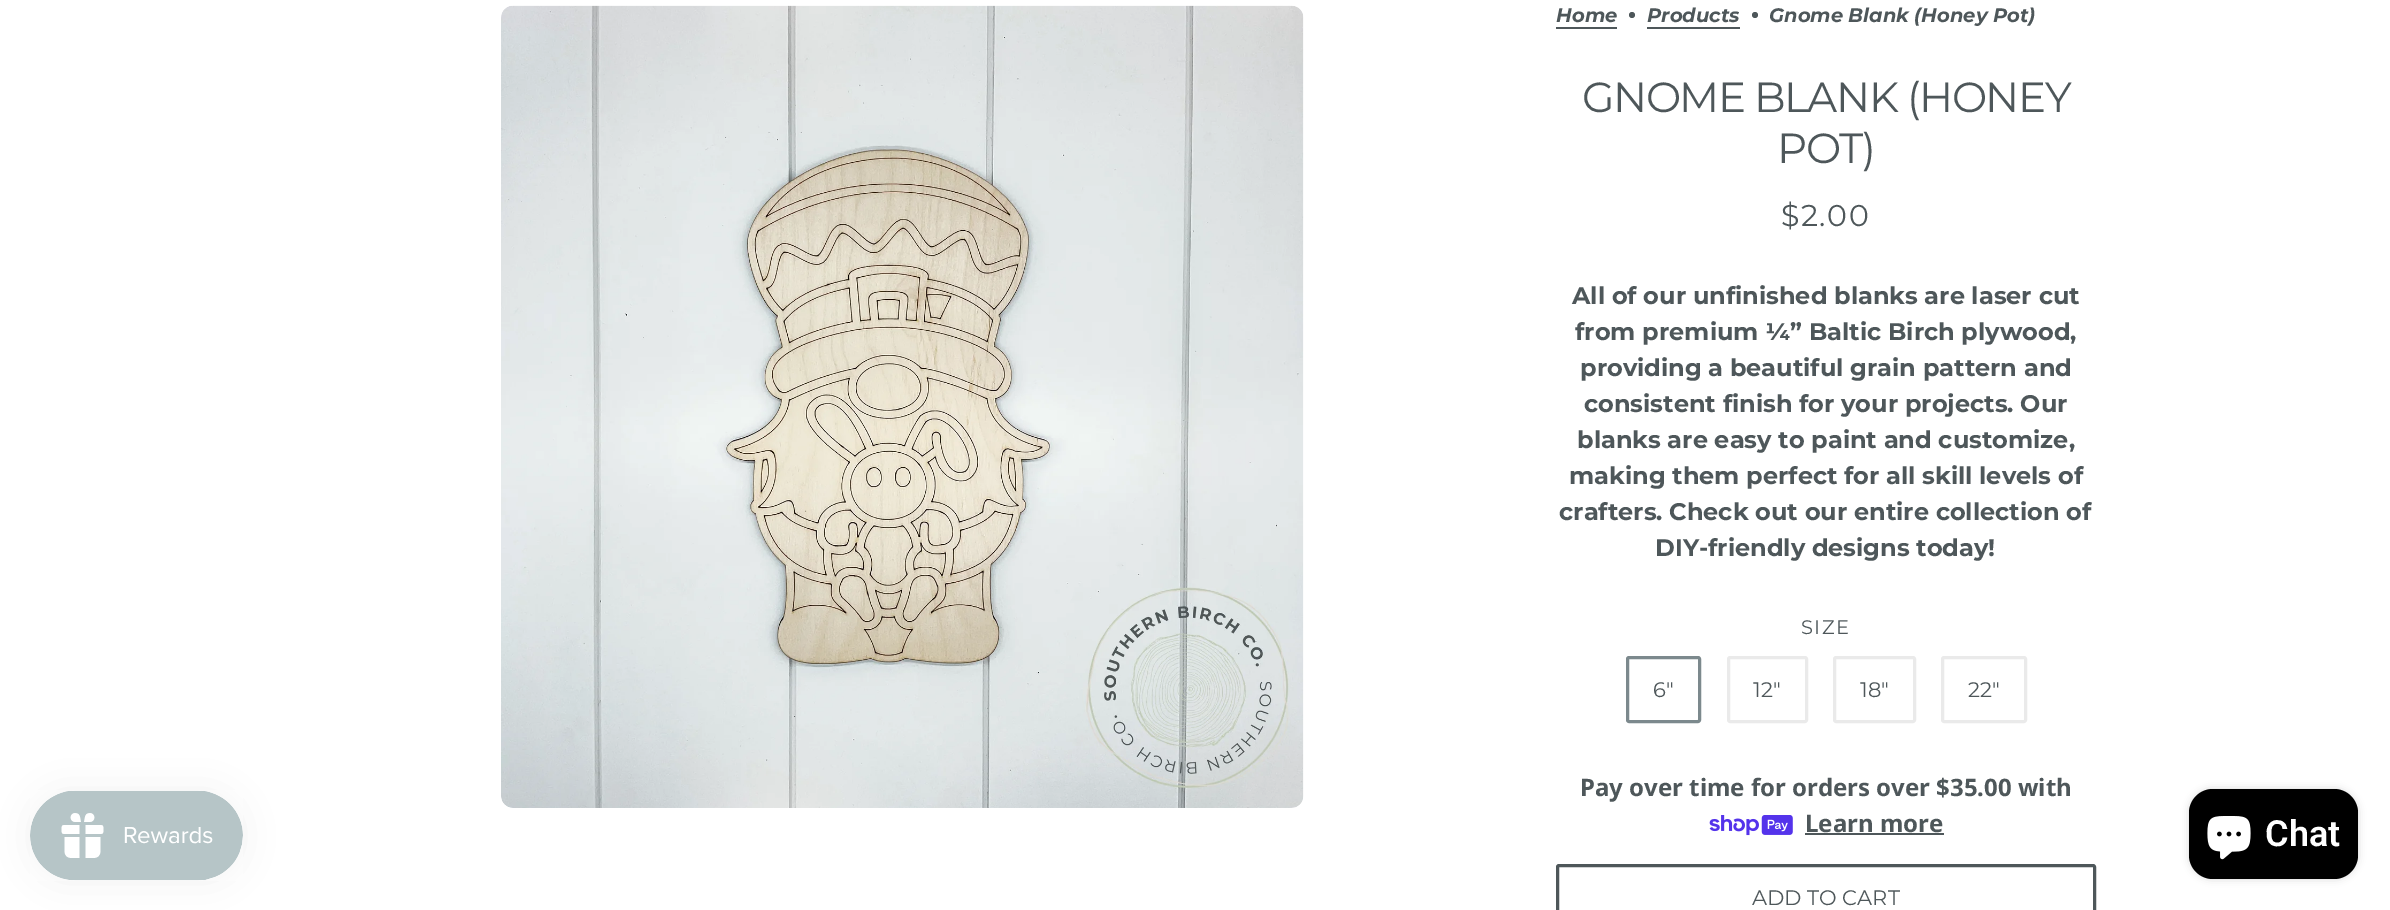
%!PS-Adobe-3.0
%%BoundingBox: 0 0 2390 910
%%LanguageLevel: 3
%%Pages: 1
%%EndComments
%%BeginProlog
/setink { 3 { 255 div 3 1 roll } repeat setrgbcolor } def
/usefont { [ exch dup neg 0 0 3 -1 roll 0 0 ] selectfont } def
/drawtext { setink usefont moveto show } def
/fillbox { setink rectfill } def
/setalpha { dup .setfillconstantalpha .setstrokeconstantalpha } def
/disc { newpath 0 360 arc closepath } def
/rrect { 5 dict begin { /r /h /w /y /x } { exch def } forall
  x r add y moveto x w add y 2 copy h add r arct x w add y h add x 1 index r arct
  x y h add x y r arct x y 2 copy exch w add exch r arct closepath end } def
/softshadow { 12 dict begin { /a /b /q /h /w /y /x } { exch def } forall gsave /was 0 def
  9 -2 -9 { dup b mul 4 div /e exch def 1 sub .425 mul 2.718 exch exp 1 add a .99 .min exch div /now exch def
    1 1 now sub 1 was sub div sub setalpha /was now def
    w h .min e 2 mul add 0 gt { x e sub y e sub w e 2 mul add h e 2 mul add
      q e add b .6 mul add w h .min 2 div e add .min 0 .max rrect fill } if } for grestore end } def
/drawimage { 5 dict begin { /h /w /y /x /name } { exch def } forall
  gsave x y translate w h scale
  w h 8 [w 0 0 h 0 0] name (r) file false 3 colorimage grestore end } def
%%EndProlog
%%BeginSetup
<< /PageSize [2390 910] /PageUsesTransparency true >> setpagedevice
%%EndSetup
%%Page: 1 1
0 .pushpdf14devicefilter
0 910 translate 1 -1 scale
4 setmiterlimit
0 0 2390 910 255 255 255 fillbox
0 0 0 setink
30 791 213 90 45 19 0.05 softshadow
(assets/img1.rgb) 30 790 213 91 drawimage
(assets/img2.rgb) 501 5 803 803 drawimage
(Home) 1556 22 /Montserrat-BoldItalic 19.5 78 87 90 drawtext
1556 27 61 2 78 87 90 fillbox
1632 15 3 disc fill
(Products) 1647 22 /Montserrat-BoldItalic 19.5 78 87 90 drawtext
1647 27 93 2 78 87 90 fillbox
1755 15 3 disc fill
(Gnome Blank \(Honey Pot\)) 1769 22 /Montserrat-BoldItalic 19.5 78 87 90 drawtext
/Montserrat-Regular 42 usefont
1582 112 moveto -1.5 0 (GNOME BLANK \(HONEY) ashow
1777 163 moveto -1.5 0 (POT\)) ashow
/Montserrat-Regular 30 usefont
1781 226 moveto 1.5 0 ($2.00) ashow
(All of our unfinished blanks are laser cut) 1572 304 /Montserrat-Bold 24 78 87 90 drawtext
(from premium ¼” Baltic Birch plywood,) 1575 340 /Montserrat-Bold 24 78 87 90 drawtext
(providing a beautiful grain pattern and) 1580 376 /Montserrat-Bold 24 78 87 90 drawtext
(consistent finish for your projects. Our) 1584 412 /Montserrat-Bold 24 78 87 90 drawtext
(blanks are easy to paint and customize,) 1577 448 /Montserrat-Bold 24 78 87 90 drawtext
(making them perfect for all skill levels of) 1569 484 /Montserrat-Bold 24 78 87 90 drawtext
(crafters. Check out our entire collection of) 1559 520 /Montserrat-Bold 24 78 87 90 drawtext
(DIY-friendly designs today!) 1655 556 /Montserrat-Bold 24 78 87 90 drawtext
/Montserrat-Regular 19.5 usefont
1801 634 moveto 1.5 0 (SIZE) ashow
124 137 141 setink
3 setlinewidth
1627.5 657.5 72 64 1.5 rrect stroke
(6") 1653 697 /Montserrat-Regular 21 78 87 90 drawtext
234 234 234 setink
1728.5 657.5 78 64 1.5 rrect stroke
(12") 1753 697 /Montserrat-Regular 21 78 87 90 drawtext
234 234 234 setink
1834.5 657.5 80 64 1.5 rrect stroke
(18") 1860 697 /Montserrat-Regular 21 78 87 90 drawtext
234 234 234 setink
1942.5 657.5 83 64 1.5 rrect stroke
(22") 1968 697 /Montserrat-Regular 21 78 87 90 drawtext
(Pay over time for orders over $35.00 with) 1580 796 /NotoSans-Bold 24 78 87 90 drawtext
(assets/img3.rgb) 1709 815 84 21 drawimage
(Learn more) 1805 832 /NotoSans-Bold 24 78 87 90 drawtext
1805 833 139 2 78 87 90 fillbox
1557.5 865.5 537 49 1.5 rrect stroke
(ADD TO CART) 1752 905 /Montserrat-Regular 21 78 87 90 drawtext
0 0 0 setink
2189 789 169 90 24 4 0.15 softshadow
2189 789 169 90 24 rrect fill
(assets/img4.rgb) 2207 816 44 44 drawimage
(Chat) 2265 846 /Roboto-SemiBold 36 255 255 255 drawtext
.poppdf14devicefilter showpage
%%EOF
